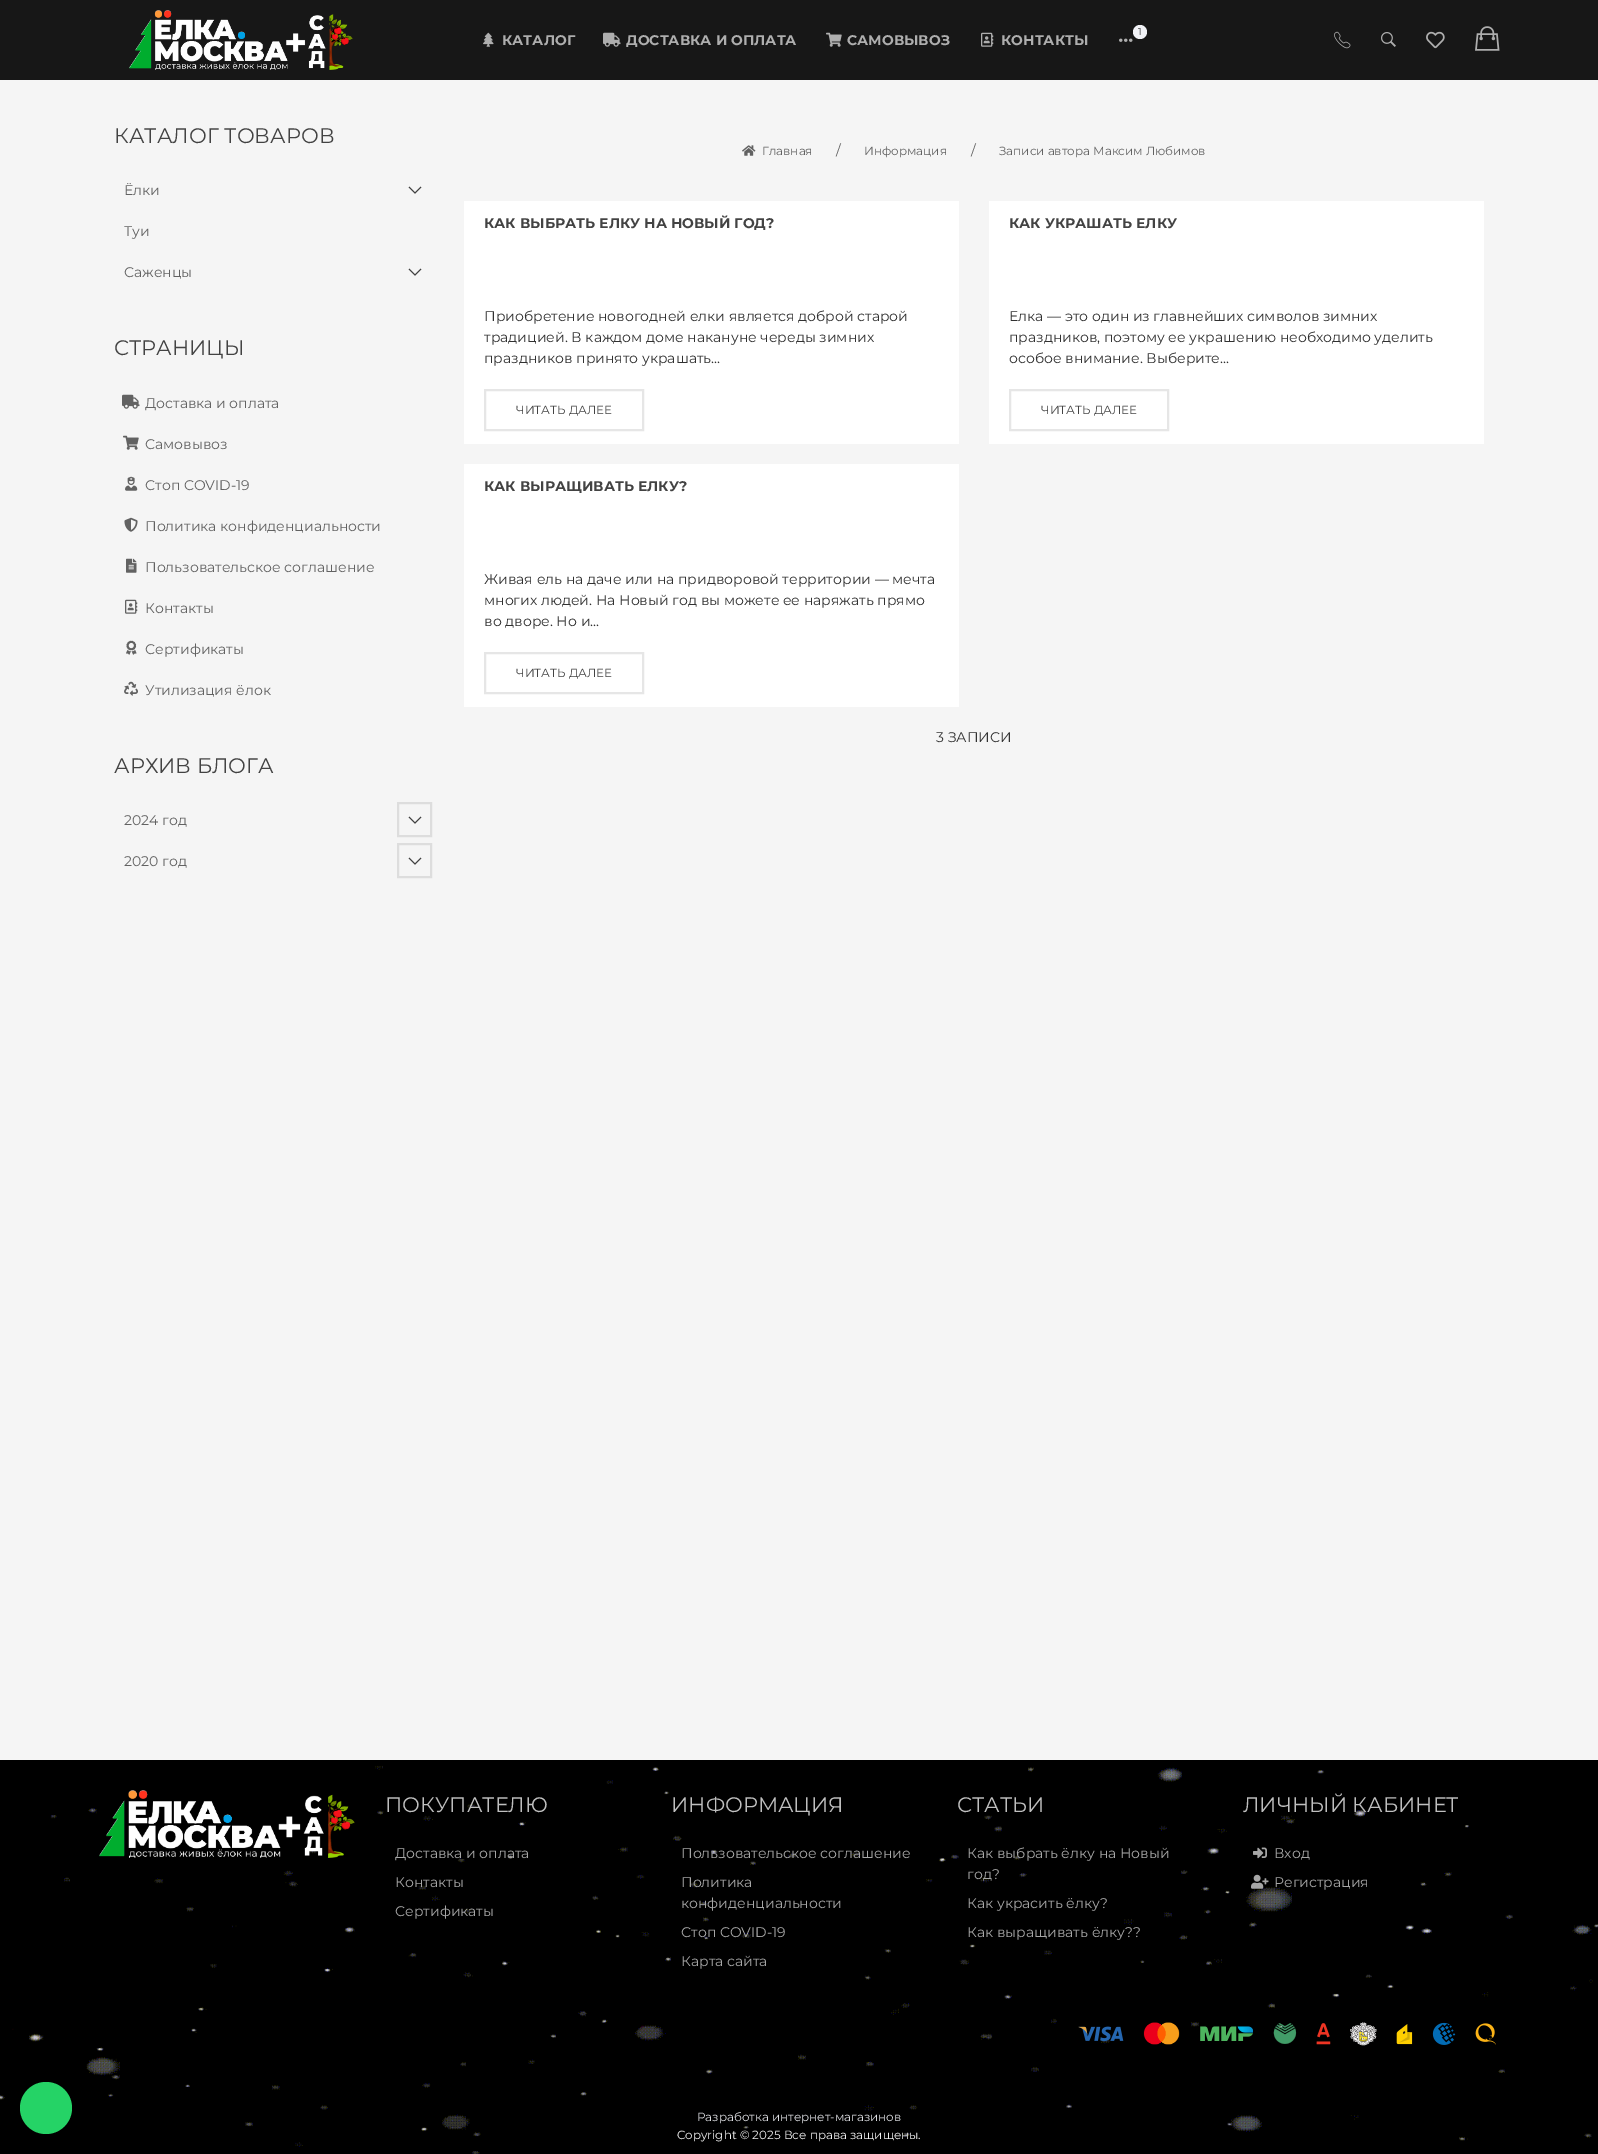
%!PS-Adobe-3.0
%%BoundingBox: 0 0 1598 2154
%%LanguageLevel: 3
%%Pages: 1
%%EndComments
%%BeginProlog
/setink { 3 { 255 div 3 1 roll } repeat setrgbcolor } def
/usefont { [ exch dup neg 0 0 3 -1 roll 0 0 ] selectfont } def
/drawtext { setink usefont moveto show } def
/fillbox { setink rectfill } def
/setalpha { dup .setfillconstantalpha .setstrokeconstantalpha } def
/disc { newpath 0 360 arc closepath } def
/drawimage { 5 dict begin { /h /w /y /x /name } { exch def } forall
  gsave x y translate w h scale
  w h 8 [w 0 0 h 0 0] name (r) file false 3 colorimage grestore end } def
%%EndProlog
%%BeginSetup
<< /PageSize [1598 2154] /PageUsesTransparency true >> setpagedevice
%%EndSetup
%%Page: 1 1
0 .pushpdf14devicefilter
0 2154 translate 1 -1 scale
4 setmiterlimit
0 0 1598 2154 245 245 245 fillbox
(assets/img20.rgb) 0 1760 1598 394 drawimage
37 211 102 setink
46 2108 26 disc fill
0 0 1598 80 23 23 23 fillbox
(assets/img1.rgb) 129 10 224 60 drawimage
241 242 246 setink
1140 32 7 disc fill
(1) 1138 35 /Montserrat-Regular 10 72 73 74 drawtext
(assets/img2.rgb) 1119 38 14 4 drawimage
(assets/img3.rgb) 483 32 11 15 drawimage
(КАТАЛОГ) 502 45 /Montserrat-Bold 14 174 174 174 drawtext
(assets/img4.rgb) 603 32 18 15 drawimage
(ДОСТАВКА И ОПЛАТА) 626 45 /Montserrat-Bold 14 174 174 174 drawtext
(assets/img5.rgb) 826 32 16 15 drawimage
(САМОВЫВОЗ) 847 45 /Montserrat-Bold 14 174 174 174 drawtext
(assets/img6.rgb) 981 32 13 15 drawimage
(КОНТАКТЫ) 1001 45 /Montserrat-Bold 14 174 174 174 drawtext
(assets/img7.rgb) 1334 31 17 18 drawimage
(assets/img8.rgb) 1381 32 15 15 drawimage
(assets/img9.rgb) 1426 31 19 18 drawimage
(assets/img10.rgb) 1475 26 25 25 drawimage
(КАТАЛОГ ТОВАРОВ) 114 143 /Montserrat-Regular 21 67 67 67 drawtext
(Ёлки) 124 195 /Montserrat-Regular 14 98 98 98 drawtext
65 65 65 setink
421 187 moveto 415 193 lineto 409 187 lineto stroke
(Туи) 124 236 /Montserrat-Regular 14 98 98 98 drawtext
(Саженцы) 124 277 /Montserrat-Regular 14 98 98 98 drawtext
65 65 65 setink
421 269 moveto 415 275 lineto 409 269 lineto stroke
(СТРАНИЦЫ) 114 355 /Montserrat-Regular 21 67 67 67 drawtext
(assets/img11.rgb) 122 394 18 15 drawimage
(Доставка и оплата) 145 408 /Montserrat-Regular 14 98 98 98 drawtext
(assets/img12.rgb) 123 435 16 15 drawimage
(Самовывоз) 145 449 /Montserrat-Regular 14 98 98 98 drawtext
(assets/img13.rgb) 125 476 13 15 drawimage
(Стоп COVID-19) 145 490 /Montserrat-Regular 14 98 98 98 drawtext
(assets/img14.rgb) 124 517 14 15 drawimage
(Политика конфиденциальности) 145 531 /Montserrat-Regular 14 98 98 98 drawtext
(assets/img15.rgb) 126 558 11 15 drawimage
(Пользовательское соглашение) 145 572 /Montserrat-Regular 14 98 98 98 drawtext
(assets/img16.rgb) 125 599 13 15 drawimage
(Контакты) 145 613 /Montserrat-Regular 14 98 98 98 drawtext
(assets/img17.rgb) 126 640 11 15 drawimage
(Сертификаты) 145 654 /Montserrat-Regular 14 98 98 98 drawtext
(assets/img18.rgb) 124 681 14 15 drawimage
(Утилизация ёлок) 145 695 /Montserrat-Regular 14 98 98 98 drawtext
(АРХИВ БЛОГА) 114 773 /Montserrat-Regular 21 67 67 67 drawtext
(2024 год) 124 825 /Montserrat-Regular 14 98 98 98 drawtext
221 221 221 setink
2 setlinewidth
398 803 33 33 rectstroke
65 65 65 setink
1 setlinewidth
421 817 moveto 415 823 lineto 409 817 lineto stroke
(2020 год) 124 866 /Montserrat-Regular 14 98 98 98 drawtext
221 221 221 setink
2 setlinewidth
398 844 33 33 rectstroke
65 65 65 setink
1 setlinewidth
421 858 moveto 415 864 lineto 409 858 lineto stroke
(assets/img19.rgb) 742 145 14 11 drawimage
(Главная) 762 155 /Montserrat-Regular 11.9 98 98 98 drawtext
(/) 836 155 /Montserrat-Regular 14 98 98 98 drawtext
(Информация) 864 155 /Montserrat-Regular 11.9 98 98 98 drawtext
(/) 971 155 /Montserrat-Regular 14 98 98 98 drawtext
(Записи автора Максим Любимов) 999 155 /Montserrat-Regular 11.9 98 98 98 drawtext
464 201 495 243 255 255 255 fillbox
(КАК ВЫБРАТЬ ЕЛКУ НА НОВЫЙ ГОД?) 484 228 /Montserrat-Bold 14 67 67 67 drawtext
(Приобретение новогодней елки является доброй старой) 484 321 /Montserrat-Regular 14 49 49 49 drawtext
(традицией. В каждом доме накануне череды зимних) 484 342 /Montserrat-Regular 14 49 49 49 drawtext
(праздников принято украшать...) 484 363 /Montserrat-Regular 14 49 49 49 drawtext
230 230 230 setink
2 setlinewidth
485 390 158 40 rectstroke
(ЧИТАТЬ ДАЛЕЕ) 516 414 /Montserrat-Regular 11.9 67 67 67 drawtext
989 201 495 243 255 255 255 fillbox
(КАК УКРАШАТЬ ЕЛКУ) 1009 228 /Montserrat-Bold 14 67 67 67 drawtext
(Елка — это один из главнейших символов зимних) 1009 321 /Montserrat-Regular 14 49 49 49 drawtext
(праздников, поэтому ее украшению необходимо уделить) 1009 342 /Montserrat-Regular 14 49 49 49 drawtext
(особое внимание. Выберите...) 1009 363 /Montserrat-Regular 14 49 49 49 drawtext
230 230 230 setink
1010 390 158 40 rectstroke
(ЧИТАТЬ ДАЛЕЕ) 1041 414 /Montserrat-Regular 11.9 67 67 67 drawtext
464 464 495 243 255 255 255 fillbox
(КАК ВЫРАЩИВАТЬ ЕЛКУ?) 484 491 /Montserrat-Bold 14 67 67 67 drawtext
(Живая ель на даче или на придворовой территории — мечта) 484 584 /Montserrat-Regular 14 49 49 49 drawtext
(многих людей. На Новый год вы можете ее наряжать прямо) 484 605 /Montserrat-Regular 14 49 49 49 drawtext
(во дворе. Но и...) 484 626 /Montserrat-Regular 14 49 49 49 drawtext
230 230 230 setink
485 653 158 40 rectstroke
(ЧИТАТЬ ДАЛЕЕ) 516 677 /Montserrat-Regular 11.9 67 67 67 drawtext
(3 ЗАПИСИ) 936 742 /Montserrat-Regular 14 49 49 49 drawtext
0.1 setalpha
112 2076 8 1 0 0 0 fillbox
1 setalpha
(assets/img21.rgb) 99 1790 256 68 drawimage
(ПОКУПАТЕЛЮ) 385 1812 /Montserrat-Regular 21 191 191 191 drawtext
(Доставка и оплата) 395 1858 /Montserrat-Regular 14 166 166 166 drawtext
(Контакты) 395 1887 /Montserrat-Regular 14 166 166 166 drawtext
(Сертификаты) 395 1916 /Montserrat-Regular 14 166 166 166 drawtext
(ИНФОРМАЦИЯ) 671 1812 /Montserrat-Regular 21 191 191 191 drawtext
(Пользовательское соглашение) 681 1858 /Montserrat-Regular 14 166 166 166 drawtext
(Политика) 681 1887 /Montserrat-Regular 14 166 166 166 drawtext
(конфиденциальности) 681 1908 /Montserrat-Regular 14 166 166 166 drawtext
(Стоп COVID-19) 681 1937 /Montserrat-Regular 14 166 166 166 drawtext
(Карта сайта) 681 1966 /Montserrat-Regular 14 166 166 166 drawtext
(СТАТЬИ) 957 1812 /Montserrat-Regular 21 191 191 191 drawtext
(Как выбрать ёлку на Новый) 967 1858 /Montserrat-Regular 14 166 166 166 drawtext
(год?) 967 1879 /Montserrat-Regular 14 166 166 166 drawtext
(Как украсить ёлку?) 967 1908 /Montserrat-Regular 14 166 166 166 drawtext
(Как выращивать ёлку??) 967 1937 /Montserrat-Regular 14 166 166 166 drawtext
(ЛИЧНЫЙ КАБИНЕТ) 1243 1812 /Montserrat-Regular 21 191 191 191 drawtext
(assets/img22.rgb) 1253 1847 14 12 drawimage
(Вход) 1274 1858 /Montserrat-Regular 14 166 166 166 drawtext
(assets/img23.rgb) 1251 1874 18 15 drawimage
(Регистрация) 1274 1887 /Montserrat-Regular 14 166 166 166 drawtext
(assets/img24.rgb) 1078 2026 46 16 drawimage
(assets/img25.rgb) 1143 2022 37 23 drawimage
(assets/img26.rgb) 1200 2026 53 15 drawimage
(assets/img27.rgb) 1273 2023 24 21 drawimage
(assets/img28.rgb) 1316 2023 15 22 drawimage
(assets/img29.rgb) 1350 2022 27 24 drawimage
(assets/img30.rgb) 1396 2024 17 21 drawimage
(assets/img31.rgb) 1432 2022 24 23 drawimage
(assets/img32.rgb) 1475 2023 21 22 drawimage
0.1 setalpha
112 2077 8 1 0 0 0 fillbox
1 setalpha
(Разработка интернет-магазинов) 697 2121 /Montserrat-Regular 11.9 221 222 226 drawtext
(Copyright © 2025 Все права защищены.) 677 2139 /Montserrat-Regular 11.9 242 242 242 drawtext
.poppdf14devicefilter showpage
%%EOF
